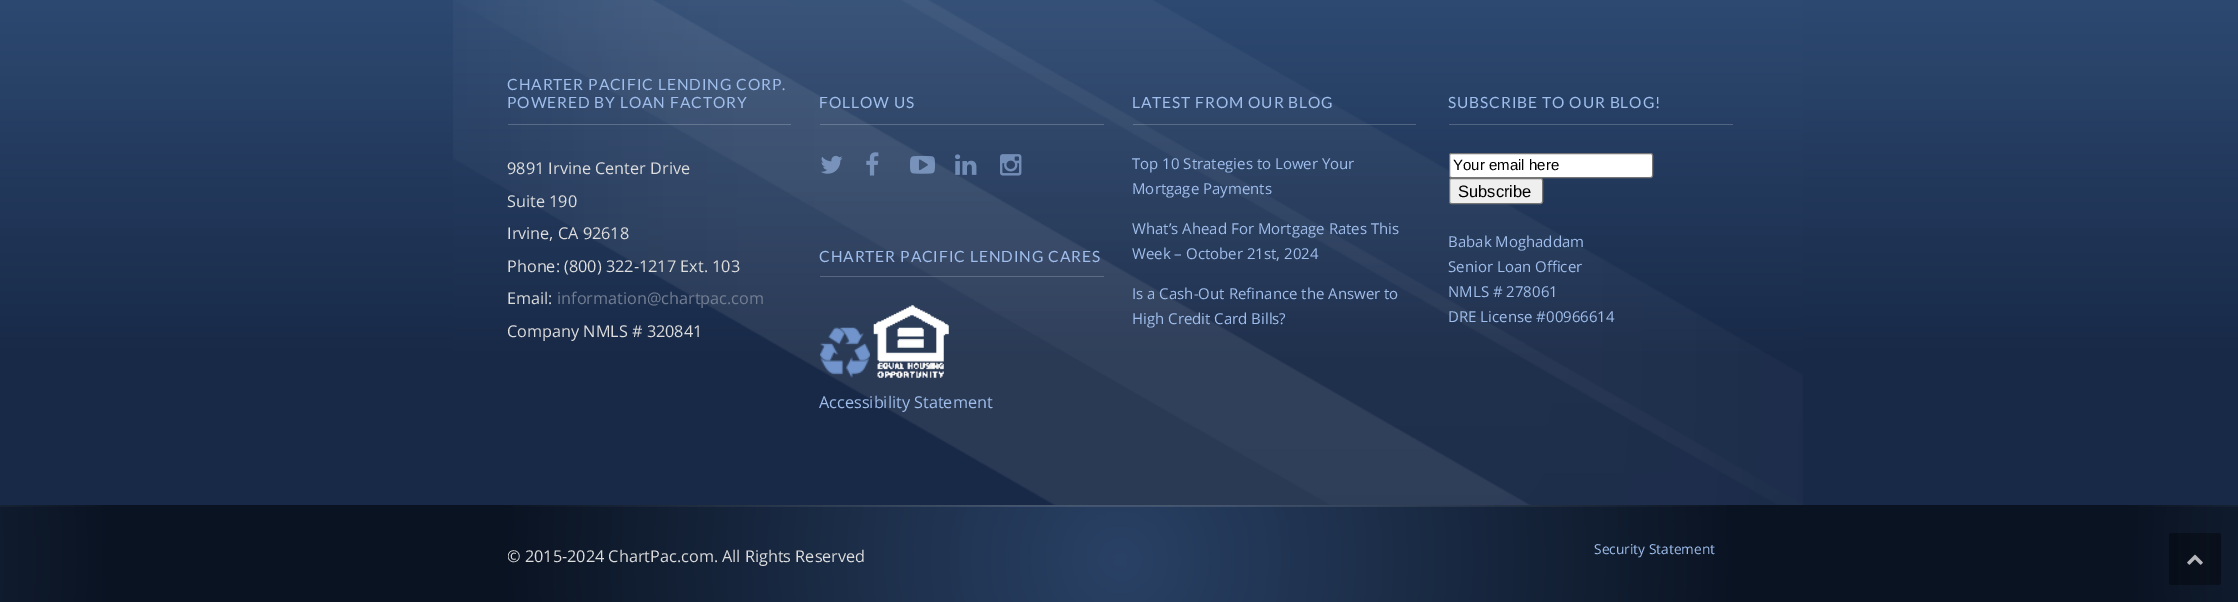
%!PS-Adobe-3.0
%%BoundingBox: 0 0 2238 602
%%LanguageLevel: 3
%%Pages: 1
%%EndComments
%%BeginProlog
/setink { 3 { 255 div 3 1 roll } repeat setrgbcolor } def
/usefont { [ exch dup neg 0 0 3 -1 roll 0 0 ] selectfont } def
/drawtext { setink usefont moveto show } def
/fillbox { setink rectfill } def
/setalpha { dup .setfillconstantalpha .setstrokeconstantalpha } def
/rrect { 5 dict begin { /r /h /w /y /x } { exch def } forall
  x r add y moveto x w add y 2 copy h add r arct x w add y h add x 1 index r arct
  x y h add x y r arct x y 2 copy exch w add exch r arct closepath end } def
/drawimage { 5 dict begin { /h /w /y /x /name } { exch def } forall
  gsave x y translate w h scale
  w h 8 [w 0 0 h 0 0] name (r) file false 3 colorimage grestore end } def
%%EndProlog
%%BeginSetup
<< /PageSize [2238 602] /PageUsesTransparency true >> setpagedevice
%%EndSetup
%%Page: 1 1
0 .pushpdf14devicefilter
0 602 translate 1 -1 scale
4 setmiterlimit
0 0 2238 602 255 255 255 fillbox
gsave 0 0 moveto 2238 0 lineto 2238 506 lineto 0 506 lineto closepath clip newpath
<< /ShadingType 2 /ColorSpace /DeviceRGB /Coords [1119 -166 1119 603] /Extend [true true] /Function << /FunctionType 3 /Domain [0 1] /Functions [<< /FunctionType 2 /Domain [0 1] /C0 [0.216 0.345 0.522] /C1 [0.094 0.161 0.278] /N 1 >> << /FunctionType 2 /Domain [0 1] /C0 [0.094 0.161 0.278] /C1 [0.094 0.161 0.278] /N 1 >>] /Bounds [0.68] /Encode [0 1 0 1] >> >> shfill grestore
(assets/img1.rgb) 453 0 1350 506 drawimage
0.2 setalpha
508 124 283 1 255 255 255 fillbox
/Lato-Regular 15.5 usefont
1 setalpha
159 190 236 setink
507 90 moveto 0.9 0 (CHARTER PACIFIC LENDING CORP.) ashow
507 108 moveto 0.9 0 (POWERED BY LOAN FACTORY) ashow
(9891 Irvine Center Drive) 507 174 /OpenSans-Regular 16.25 221 221 221 drawtext
(Suite 190) 507 207 /OpenSans-Regular 16.25 221 221 221 drawtext
(Irvine, CA 92618) 507 239 /OpenSans-Regular 16.25 221 221 221 drawtext
(Phone: \(800\) 322-1217 Ext. 103) 507 272 /OpenSans-Regular 16.25 221 221 221 drawtext
(Email:) 507 304 /OpenSans-Regular 16.25 221 221 221 drawtext
(information@chartpac.com) 557 304 /OpenSans-Regular 16.25 115 126 146 drawtext
(Company NMLS # 320841) 507 337 /OpenSans-Regular 16.25 221 221 221 drawtext
0.2 setalpha
820 124 284 1 255 255 255 fillbox
/Lato-Regular 15.5 usefont
1 setalpha
159 190 236 setink
819 108 moveto 0.9 0 (FOLLOW US) ashow
(assets/img2.rgb) 821 155 22 19 drawimage
(assets/img3.rgb) 866 152 13 24 drawimage
(assets/img4.rgb) 910 155 25 19 drawimage
(assets/img5.rgb) 955 154 22 21 drawimage
(assets/img6.rgb) 1000 154 22 22 drawimage
0.2 setalpha
820 276 284 1 255 255 255 fillbox
1 setalpha
159 190 236 setink
819 262 moveto 0.9 0 (CHARTER PACIFIC LENDING CARES) ashow
(assets/img7.rgb) 820 327 50 51 drawimage
(assets/img8.rgb) 873 305 76 73 drawimage
(Accessibility Statement) 819 408 /OpenSans-Regular 16.25 159 190 236 drawtext
0.2 setalpha
1133 124 283 1 255 255 255 fillbox
/Lato-Regular 15.5 usefont
1 setalpha
159 190 236 setink
1132 108 moveto 0.9 0 (LATEST FROM OUR BLOG) ashow
(Top 10 Strategies to Lower Your) 1132 169 /OpenSans-Regular 15 159 190 236 drawtext
(Mortgage Payments) 1132 194 /OpenSans-Regular 15 159 190 236 drawtext
(What’s Ahead For Mortgage Rates This) 1132 234 /OpenSans-Regular 15 159 190 236 drawtext
(Week – October 21st, 2024) 1132 259 /OpenSans-Regular 15 159 190 236 drawtext
(Is a Cash-Out Refinance the Answer to) 1132 299 /OpenSans-Regular 15 159 190 236 drawtext
(High Credit Card Bills?) 1132 324 /OpenSans-Regular 15 159 190 236 drawtext
1449 124 284 1 81 101 130 fillbox
/Lato-Regular 15.5 usefont
159 190 236 setink
1448 108 moveto 0.9 0 (SUBSCRIBE TO OUR BLOG!) ashow
255 255 255 setink
1449.5 153.5 203 24 2 rrect gsave fill grestore
118 118 118 setink
stroke
(Your email here) 1453 170 /LiberationSans-Regular 15 0 0 0 drawtext
239 239 239 setink
1449.5 178.5 93 25 2 rrect gsave fill grestore
118 118 118 setink
stroke
(Subscribe) 1458 197 /LiberationSans-Regular 16.5 0 0 0 drawtext
(Babak Moghaddam) 1448 247 /OpenSans-Regular 15 159 190 236 drawtext
(Senior Loan Officer) 1448 272 /OpenSans-Regular 15 159 190 236 drawtext
(NMLS # 278061) 1448 297 /OpenSans-Regular 15 159 190 236 drawtext
(DRE License #00966614) 1448 322 /OpenSans-Regular 15 159 190 236 drawtext
(assets/img9.rgb) 0 505 2238 97 drawimage
gsave
508 536 1225 35 rectclip
(© 2015-2024 ChartPac.com. All Rights Reserved) 507 562 /OpenSans-Regular 16.25 221 221 221 drawtext
grestore
(Security Statement) 1594 554 /OpenSans-Regular 13.75 159 190 236 drawtext
0.35 setalpha
0 0 0 setink
2169 533 52 52 2.5 rrect fill
1 setalpha
(assets/img10.rgb) 2187 554 16 11 drawimage
.poppdf14devicefilter showpage
%%EOF
